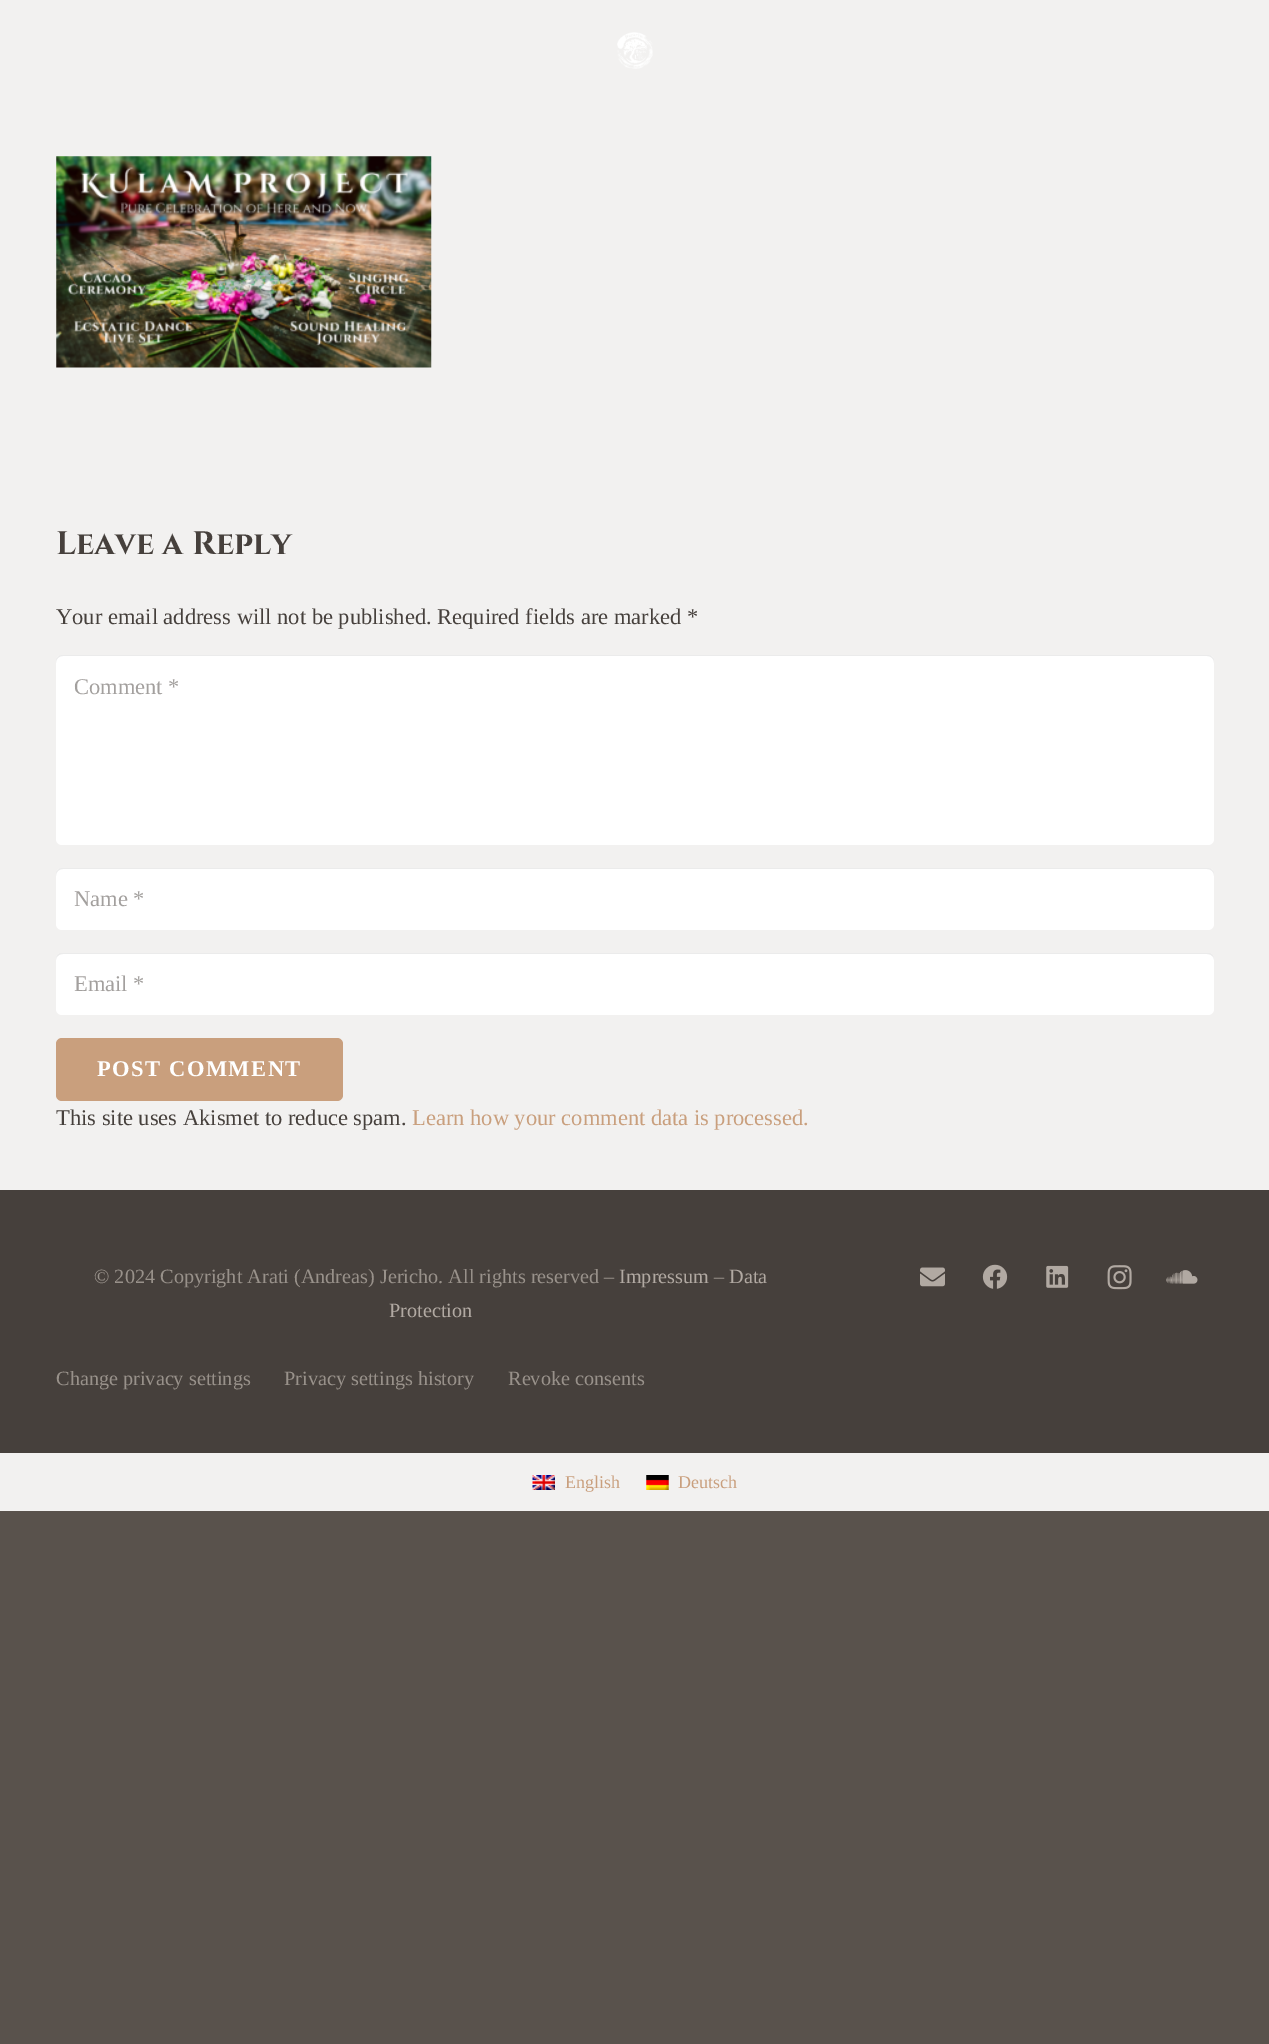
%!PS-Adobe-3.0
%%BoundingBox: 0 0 1269 2044
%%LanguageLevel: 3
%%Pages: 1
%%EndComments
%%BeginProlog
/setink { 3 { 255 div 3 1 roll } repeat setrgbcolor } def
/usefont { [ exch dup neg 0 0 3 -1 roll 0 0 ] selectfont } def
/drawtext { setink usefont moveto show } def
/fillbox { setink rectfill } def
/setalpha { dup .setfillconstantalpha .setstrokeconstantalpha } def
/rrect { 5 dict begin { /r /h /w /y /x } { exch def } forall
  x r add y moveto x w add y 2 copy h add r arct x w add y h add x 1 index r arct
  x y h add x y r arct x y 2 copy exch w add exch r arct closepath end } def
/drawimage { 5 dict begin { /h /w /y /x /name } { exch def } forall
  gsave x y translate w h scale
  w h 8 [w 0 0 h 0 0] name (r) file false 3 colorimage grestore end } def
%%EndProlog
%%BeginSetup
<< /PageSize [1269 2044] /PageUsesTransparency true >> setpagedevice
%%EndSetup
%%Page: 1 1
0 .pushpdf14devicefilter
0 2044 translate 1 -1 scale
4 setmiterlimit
0 0 1269 2044 89 82 76 fillbox
0 0 1269 1190 242 241 240 fillbox
(assets/img1.rgb) 617 32 36 37 drawimage
(assets/img2.rgb) 56 156 376 212 drawimage
(Leave a Reply) 56 554 /Cinzel-Bold 32.5 70 64 60 drawtext
(Your email address will not be published. Required fields are marked *) 56 624 /LiberationSerif-Regular 22.5 70 64 60 drawtext
255 255 255 setink
56 655 1158 190 6 rrect fill
0.08 setalpha
0 0 0 setink
63 656 moveto 1207 656 lineto 1211 656 1214 659 1214 663 curveto 1214 661 lineto 1214 658 1211 655 1208 655 curveto 62 655 lineto 59 655 56 658 56 661 curveto 56 663 lineto 56 659 59 656 63 656 curveto closepath fill
1 setalpha
(Comment *) 74 694 /LiberationSerif-Regular 22.5 163 160 158 drawtext
255 255 255 setink
56 868 1158 62 6 rrect fill
0.08 setalpha
0 0 0 setink
63 869 moveto 1207 869 lineto 1211 869 1214 872 1214 876 curveto 1214 874 lineto 1214 871 1211 868 1208 868 curveto 62 868 lineto 59 868 56 871 56 874 curveto 56 876 lineto 56 872 59 869 63 869 curveto closepath fill
1 setalpha
(Name *) 74 906 /LiberationSerif-Regular 22.5 163 160 158 drawtext
255 255 255 setink
56 953 1158 62 6 rrect fill
0.08 setalpha
0 0 0 setink
63 954 moveto 1207 954 lineto 1211 954 1214 957 1214 960 curveto 1214 956 1212 953 1208 953 curveto 62 953 lineto 58 953 56 956 56 960 curveto 56 957 59 954 63 954 curveto closepath fill
1 setalpha
(Email *) 74 991 /LiberationSerif-Regular 22.5 163 160 158 drawtext
201 159 125 setink
56 1038 287 63 6 rrect fill
/LiberationSerif-Bold 22.5 usefont
255 255 255 setink
97 1076 moveto 1.5 0 (POST COMMENT) ashow
(This site uses Akismet to reduce spam.) 56 1125 /LiberationSerif-Regular 22.5 70 64 60 drawtext
(Learn how your comment data is processed.) 412 1125 /LiberationSerif-Regular 22.5 201 159 125 drawtext
0 1190 1269 263 70 64 60 fillbox
(© 2024 Copyright Arati \(Andreas\) Jericho. All rights reserved –) 94 1283 /LiberationSerif-Regular 20.25 152 145 138 drawtext
(Impressum) 619 1283 /LiberationSerif-Regular 20.25 177 169 162 drawtext
(–) 714 1283 /LiberationSerif-Regular 20.25 152 145 138 drawtext
(Data) 729 1283 /LiberationSerif-Regular 20.25 177 169 162 drawtext
(Protection) 389 1317 /LiberationSerif-Regular 20.25 177 169 162 drawtext
(Change privacy settings) 56 1385 /LiberationSerif-Regular 20.25 152 145 138 drawtext
(Privacy settings history) 284 1385 /LiberationSerif-Regular 20.25 152 145 138 drawtext
(Revoke consents) 508 1385 /LiberationSerif-Regular 20.25 152 145 138 drawtext
(assets/img3.rgb) 920 1267 25 20 drawimage
(assets/img4.rgb) 982 1264 26 25 drawimage
(assets/img5.rgb) 1046 1265 23 23 drawimage
(assets/img6.rgb) 1107 1265 25 25 drawimage
(assets/img7.rgb) 1166 1270 32 14 drawimage
0 1453 1269 58 242 241 240 fillbox
(assets/img8.rgb) 532 1475 23 15 drawimage
(English) 565 1488 /LiberationSerif-Regular 18 201 159 125 drawtext
(assets/img9.rgb) 646 1475 23 15 drawimage
(Deutsch) 678 1488 /LiberationSerif-Regular 18 201 159 125 drawtext
.poppdf14devicefilter showpage
%%EOF
